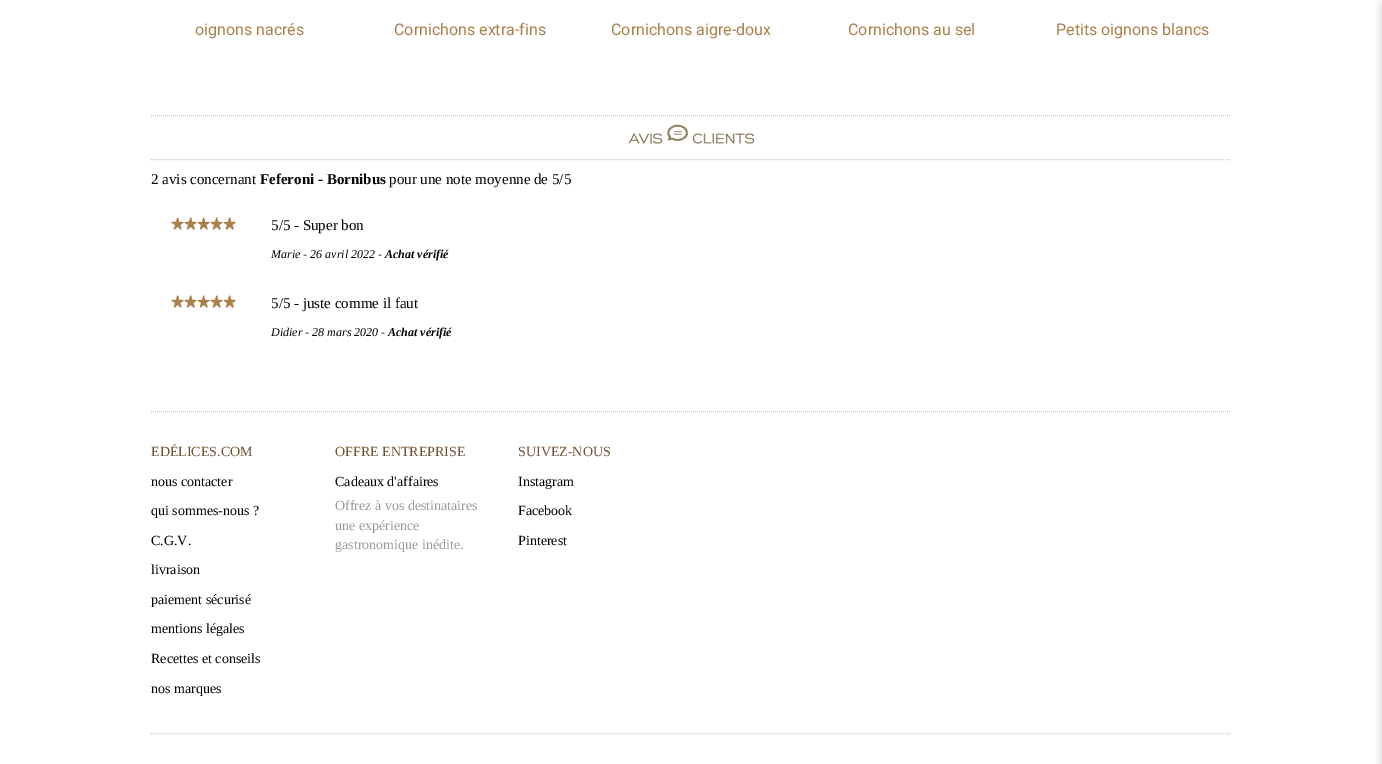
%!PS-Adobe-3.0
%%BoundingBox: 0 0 1382 764
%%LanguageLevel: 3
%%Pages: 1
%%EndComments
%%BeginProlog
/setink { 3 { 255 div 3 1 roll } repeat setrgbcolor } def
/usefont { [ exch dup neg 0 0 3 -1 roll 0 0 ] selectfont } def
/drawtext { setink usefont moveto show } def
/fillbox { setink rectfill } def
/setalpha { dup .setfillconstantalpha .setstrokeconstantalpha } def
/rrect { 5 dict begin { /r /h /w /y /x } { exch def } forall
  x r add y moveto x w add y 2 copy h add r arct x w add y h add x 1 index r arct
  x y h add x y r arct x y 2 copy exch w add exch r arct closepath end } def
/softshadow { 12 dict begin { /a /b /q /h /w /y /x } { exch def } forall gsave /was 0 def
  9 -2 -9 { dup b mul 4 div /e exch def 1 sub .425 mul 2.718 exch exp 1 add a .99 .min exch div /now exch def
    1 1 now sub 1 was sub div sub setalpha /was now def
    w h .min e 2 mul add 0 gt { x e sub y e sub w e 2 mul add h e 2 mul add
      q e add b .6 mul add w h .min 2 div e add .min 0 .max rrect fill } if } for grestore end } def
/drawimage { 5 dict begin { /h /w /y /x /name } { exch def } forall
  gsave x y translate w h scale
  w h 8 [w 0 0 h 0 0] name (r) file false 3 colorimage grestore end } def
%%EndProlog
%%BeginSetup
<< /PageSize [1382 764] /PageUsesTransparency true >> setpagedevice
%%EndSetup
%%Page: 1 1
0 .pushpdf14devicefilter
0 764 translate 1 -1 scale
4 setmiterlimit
0 0 1382 764 255 255 255 fillbox
(oignons nacrés) 195 35 /Roboto-Regular 16 172 128 75 drawtext
(Cornichons extra-fins) 394 35 /Roboto-Regular 16 172 128 75 drawtext
(Cornichons aigre-doux) 611 35 /Roboto-Regular 16 172 128 75 drawtext
(Cornichons au sel) 848 35 /Roboto-Regular 16 172 128 75 drawtext
(Petits oignons blancs) 1056 35 /Roboto-Regular 16 172 128 75 drawtext
(assets/img1.rgb) 628 124 127 20 drawimage
204 204 204 setink
[1 1] 0 setdash
151 115.5 moveto 1231 115.5 lineto stroke
151 159.5 moveto 1231 159.5 lineto stroke
(2 avis concernant) 151 184 /LiberationSerif-Regular 15 0 0 0 drawtext
(Feferoni - Bornibus) 260 184 /LiberationSerif-Bold 15 0 0 0 drawtext
(pour une note moyenne de 5/5) 389 184 /LiberationSerif-Regular 15 0 0 0 drawtext
(assets/img2.rgb) 171 218 65 12 drawimage
(assets/img3.rgb) 171 217 65 13 drawimage
(5/5 - Super bon) 271 230 /LiberationSerif-Regular 15 0 0 0 drawtext
(Marie - 26 avril 2022 -) 271 258 /LiberationSerif-Italic 12 0 0 0 drawtext
(Achat vérifié) 385 258 /LiberationSerif-BoldItalic 12 0 0 0 drawtext
(assets/img2.rgb) 171 296 65 12 drawimage
(assets/img3.rgb) 171 295 65 13 drawimage
(5/5 - juste comme il faut) 271 308 /LiberationSerif-Regular 15 0 0 0 drawtext
(Didier - 28 mars 2020 -) 271 336 /LiberationSerif-Italic 12 0 0 0 drawtext
(Achat vérifié) 388 336 /LiberationSerif-BoldItalic 12 0 0 0 drawtext
1382 4 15 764 0 5 0.2 softshadow
204 204 204 setink
151 411.5 moveto 1231 411.5 lineto stroke
(EDÉLICES.COM) 151 456 /LiberationSerif-Regular 14 109 81 48 drawtext
(nous contacter) 151 486 /LiberationSerif-Regular 14 0 0 0 drawtext
(qui sommes-nous ?) 151 515 /LiberationSerif-Regular 14 0 0 0 drawtext
(C.G.V.) 151 545 /LiberationSerif-Regular 14 0 0 0 drawtext
(livraison) 151 574 /LiberationSerif-Regular 14 0 0 0 drawtext
(paiement sécurisé) 151 604 /LiberationSerif-Regular 14 0 0 0 drawtext
(mentions légales) 151 633 /LiberationSerif-Regular 14 0 0 0 drawtext
(Recettes et conseils) 151 663 /LiberationSerif-Regular 14 0 0 0 drawtext
(nos marques) 151 693 /LiberationSerif-Regular 14 0 0 0 drawtext
(OFFRE ENTREPRISE) 335 456 /LiberationSerif-Regular 14 109 81 48 drawtext
(Cadeaux d'affaires) 335 486 /LiberationSerif-Regular 14 0 0 0 drawtext
(Offrez à vos destinataires) 335 510 /LiberationSerif-Regular 14 153 153 153 drawtext
(une expérience) 335 530 /LiberationSerif-Regular 14 153 153 153 drawtext
(gastronomique inédite.) 335 549 /LiberationSerif-Regular 14 153 153 153 drawtext
(SUIVEZ-NOUS) 518 456 /LiberationSerif-Regular 14 109 81 48 drawtext
(Instagram) 518 486 /LiberationSerif-Regular 14 0 0 0 drawtext
(Facebook) 518 515 /LiberationSerif-Regular 14 0 0 0 drawtext
(Pinterest) 518 545 /LiberationSerif-Regular 14 0 0 0 drawtext
204 204 204 setink
151 733.5 moveto 1231 733.5 lineto stroke
.poppdf14devicefilter showpage
%%EOF
